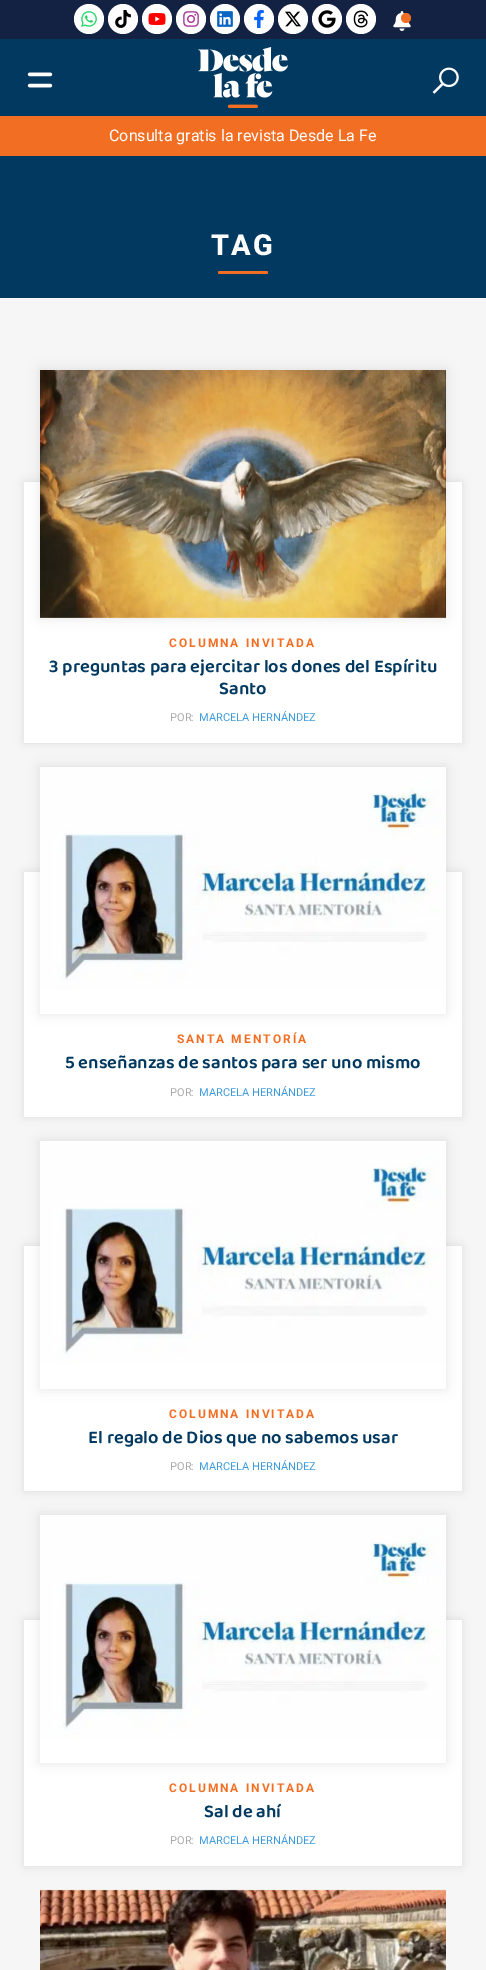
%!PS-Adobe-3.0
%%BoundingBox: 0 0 486 1970
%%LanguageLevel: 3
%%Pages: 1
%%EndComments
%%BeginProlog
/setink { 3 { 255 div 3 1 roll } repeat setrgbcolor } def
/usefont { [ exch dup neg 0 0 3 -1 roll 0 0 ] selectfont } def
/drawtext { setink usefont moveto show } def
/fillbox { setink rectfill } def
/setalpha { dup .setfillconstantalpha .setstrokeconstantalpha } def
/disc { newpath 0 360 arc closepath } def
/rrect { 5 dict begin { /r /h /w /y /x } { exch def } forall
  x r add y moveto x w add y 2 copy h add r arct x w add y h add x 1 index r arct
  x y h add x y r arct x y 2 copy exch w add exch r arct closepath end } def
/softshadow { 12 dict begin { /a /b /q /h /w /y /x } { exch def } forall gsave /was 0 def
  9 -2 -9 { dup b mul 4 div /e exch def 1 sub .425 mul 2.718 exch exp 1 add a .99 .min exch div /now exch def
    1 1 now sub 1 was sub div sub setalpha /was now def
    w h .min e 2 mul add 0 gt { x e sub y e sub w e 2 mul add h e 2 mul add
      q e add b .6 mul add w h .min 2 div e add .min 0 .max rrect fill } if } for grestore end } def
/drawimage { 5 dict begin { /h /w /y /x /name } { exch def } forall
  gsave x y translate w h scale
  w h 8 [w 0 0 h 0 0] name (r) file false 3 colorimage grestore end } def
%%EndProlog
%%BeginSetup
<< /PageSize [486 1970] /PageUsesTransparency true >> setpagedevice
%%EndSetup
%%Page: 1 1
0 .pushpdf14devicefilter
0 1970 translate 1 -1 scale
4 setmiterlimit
0 0 486 1970 246 246 246 fillbox
0 0 486 39 19 33 66 fillbox
255 255 255 setink
89 19 15 disc fill
(assets/img1.rgb) 81 11 16 16 drawimage
123 19 15 disc fill
(assets/img2.rgb) 115 10 16 18 drawimage
157 19 15 disc fill
(assets/img3.rgb) 148 13 18 12 drawimage
191 19 15 disc fill
(assets/img4.rgb) 183 11 16 16 drawimage
225 19 15 disc fill
(assets/img5.rgb) 217 11 16 16 drawimage
259 19 15 disc fill
(assets/img6.rgb) 254 10 10 18 drawimage
293 19 15 disc fill
(assets/img7.rgb) 285 11 16 16 drawimage
327 19 15 disc fill
(assets/img8.rgb) 318 10 18 18 drawimage
361 19 15 disc fill
(assets/img9.rgb) 353 10 16 18 drawimage
(assets/img10.rgb) 393 11 18 20 drawimage
242 110 34 setink
406 18 5 disc fill
0 39 486 77 1 57 96 fillbox
(assets/img11.rgb) 27 72 26 16 drawimage
(assets/img12.rgb) 198 47 90 61 drawimage
(assets/img13.rgb) 432 67 27 27 drawimage
0 116 486 40 242 110 34 fillbox
(Consulta gratis la revista Desde La Fe) 109 141 /Roboto-Regular 16 255 255 255 drawtext
0 156 486 142 1 57 96 fillbox
/Roboto-ExtraBold 29 usefont
255 255 255 setink
211 255 moveto 2 0 (TAG) ashow
242 110 34 setink
218 271 50 3 1.5 rrect fill
0 0 0 setink
24 482 438 261 0 4.5 0.1 softshadow
24 482 438 261 255 255 255 fillbox
0 0 0 setink
40 370 406 248 0 6 0.1 softshadow
(assets/img14.rgb) 40 370 406 248 drawimage
/Roboto-Bold 12 usefont
242 110 34 setink
169 647 moveto 2 0 (COLUMNA INVITADA) ashow
(3 preguntas para ejercitar los dones del Espíritu) 49 672 /BalooThambi2-SemiBold 18.4 1 57 96 drawtext
(Santo) 219 694 /BalooThambi2-SemiBold 18.4 1 57 96 drawtext
(POR:) 170 721 /Roboto-Regular 11 169 169 169 drawtext
(MARCELA HERNÁNDEZ) 199 721 /Roboto-Regular 11 60 154 219 drawtext
0 0 0 setink
24 872 438 245 0 4.5 0.1 softshadow
24 872 438 245 255 255 255 fillbox
gsave
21 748 moveto 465 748 lineto 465 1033 lineto 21 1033 lineto closepath 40 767 moveto 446 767 lineto 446 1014 lineto 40 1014 lineto closepath eoclip newpath
0 0 0 setink
40 767 406 247 0 6 0.1 softshadow
grestore
(assets/img15.rgb) 40 767 406 223 drawimage
/Roboto-Bold 12 usefont
242 110 34 setink
177 1043 moveto 2 0 (SANTA MENTORÍA) ashow
(5 enseñanzas de santos para ser uno mismo) 65 1068 /BalooThambi2-SemiBold 18.4 1 57 96 drawtext
(POR:) 170 1096 /Roboto-Regular 11 169 169 169 drawtext
(MARCELA HERNÁNDEZ) 199 1096 /Roboto-Regular 11 60 154 219 drawtext
0 0 0 setink
24 1246 438 245 0 4.5 0.1 softshadow
24 1246 438 245 255 255 255 fillbox
gsave
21 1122 moveto 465 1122 lineto 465 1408 lineto 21 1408 lineto closepath 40 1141 moveto 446 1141 lineto 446 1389 lineto 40 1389 lineto closepath eoclip newpath
0 0 0 setink
40 1141 406 248 0 6 0.1 softshadow
grestore
(assets/img16.rgb) 40 1141 406 223 drawimage
/Roboto-Bold 12 usefont
242 110 34 setink
169 1418 moveto 2 0 (COLUMNA INVITADA) ashow
(El regalo de Dios que no sabemos usar) 88 1443 /BalooThambi2-SemiBold 18.4 1 57 96 drawtext
(POR:) 170 1470 /Roboto-Regular 11 169 169 169 drawtext
(MARCELA HERNÁNDEZ) 199 1470 /Roboto-Regular 11 60 154 219 drawtext
0 0 0 setink
24 1620 438 246 0 4.5 0.1 softshadow
24 1620 438 246 255 255 255 fillbox
gsave
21 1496 moveto 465 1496 lineto 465 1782 lineto 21 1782 lineto closepath 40 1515 moveto 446 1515 lineto 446 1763 lineto 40 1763 lineto closepath eoclip newpath
0 0 0 setink
40 1515 406 248 0 6 0.1 softshadow
grestore
(assets/img17.rgb) 40 1515 406 224 drawimage
/Roboto-Bold 12 usefont
242 110 34 setink
169 1792 moveto 2 0 (COLUMNA INVITADA) ashow
(Sal de ahí) 204 1817 /BalooThambi2-SemiBold 18.4 1 57 96 drawtext
(POR:) 170 1844 /Roboto-Regular 11 169 169 169 drawtext
(MARCELA HERNÁNDEZ) 199 1844 /Roboto-Regular 11 60 154 219 drawtext
(assets/img18.rgb) 40 1889 406 81 drawimage
.poppdf14devicefilter showpage
%%EOF
